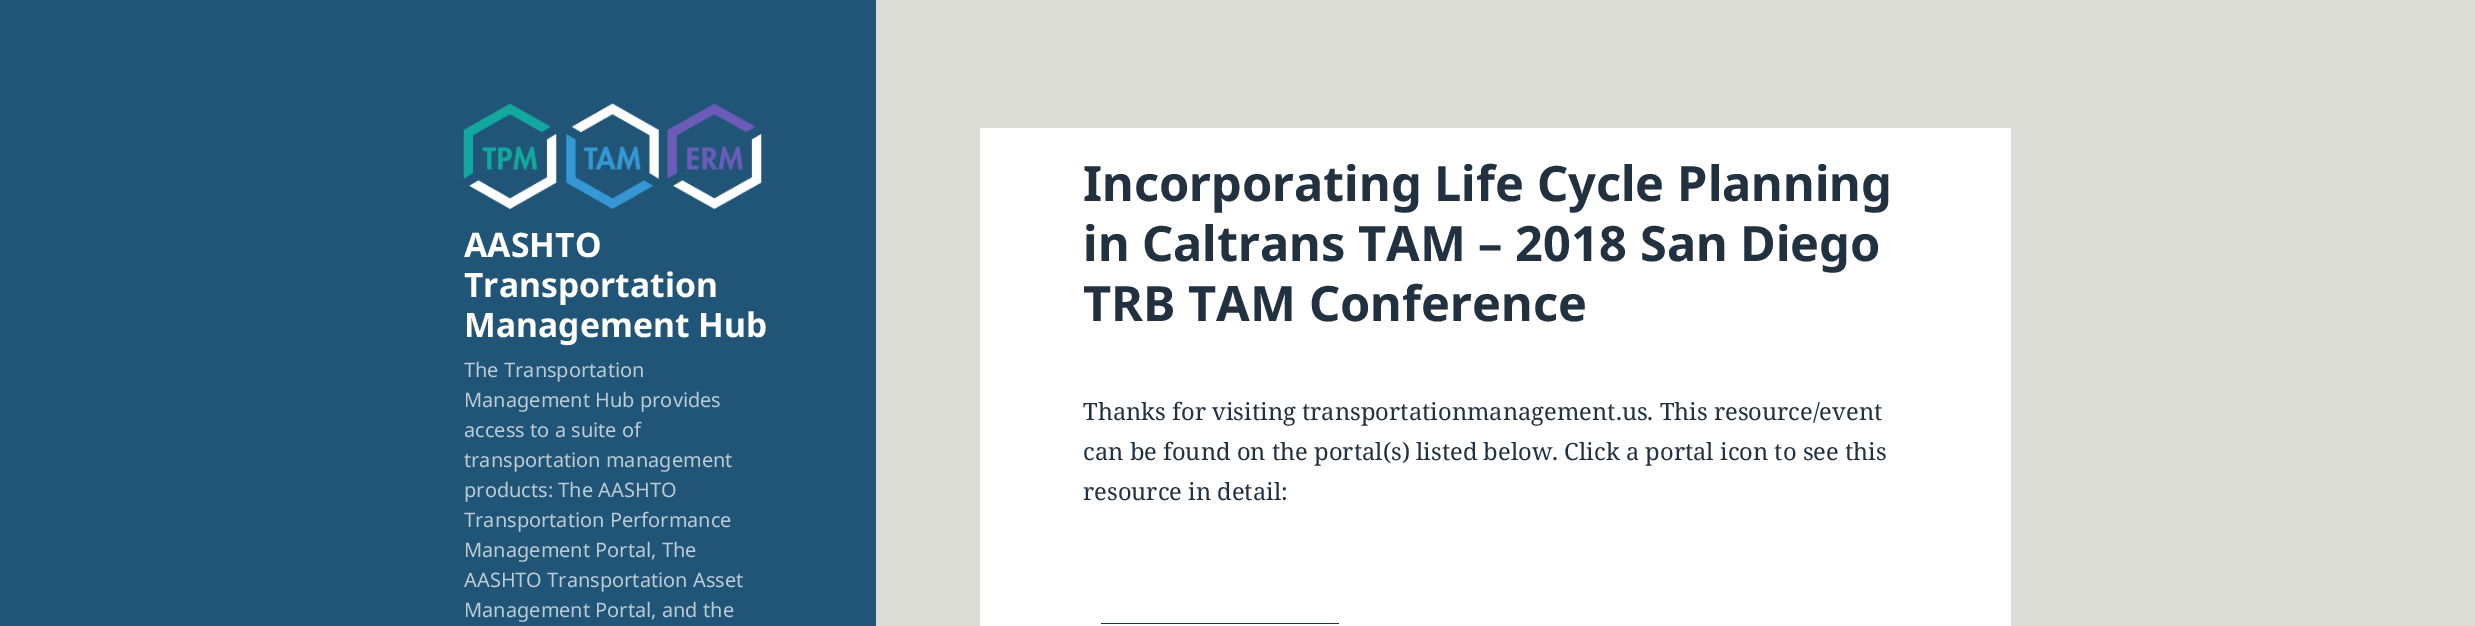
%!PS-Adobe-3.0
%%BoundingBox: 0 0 2475 626
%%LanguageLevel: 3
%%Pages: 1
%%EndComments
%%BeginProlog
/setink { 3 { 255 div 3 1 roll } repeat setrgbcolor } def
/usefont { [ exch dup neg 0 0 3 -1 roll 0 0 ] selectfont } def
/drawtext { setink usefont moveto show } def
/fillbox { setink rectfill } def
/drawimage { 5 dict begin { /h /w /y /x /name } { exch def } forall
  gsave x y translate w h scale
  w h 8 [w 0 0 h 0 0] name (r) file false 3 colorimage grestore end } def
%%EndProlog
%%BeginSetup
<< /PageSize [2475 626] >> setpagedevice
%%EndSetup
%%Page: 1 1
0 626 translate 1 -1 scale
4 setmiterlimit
0 0 2475 626 221 221 215 fillbox
0 0 876 626 32 85 119 fillbox
(assets/img1.rgb) 463 103 94 106 drawimage
(assets/img2.rgb) 566 103 93 106 drawimage
(assets/img3.rgb) 667 103 95 106 drawimage
(AASHTO) 464 257 /NotoSans-Bold 33.75 255 255 255 drawtext
(Transportation) 464 297 /NotoSans-Bold 33.75 255 255 255 drawtext
(Management Hub) 464 337 /NotoSans-Bold 33.75 255 255 255 drawtext
(The Transportation) 464 377 /NotoSans-Regular 20 188 204 214 drawtext
(Management Hub provides) 464 407 /NotoSans-Regular 20 188 204 214 drawtext
(access to a suite of) 464 437 /NotoSans-Regular 20 188 204 214 drawtext
(transportation management) 464 467 /NotoSans-Regular 20 188 204 214 drawtext
(products: The AASHTO) 464 497 /NotoSans-Regular 20 188 204 214 drawtext
(Transportation Performance) 464 527 /NotoSans-Regular 20 188 204 214 drawtext
(Management Portal, The) 464 557 /NotoSans-Regular 20 188 204 214 drawtext
(AASHTO Transportation Asset) 464 587 /NotoSans-Regular 20 188 204 214 drawtext
(Management Portal, and the) 464 617 /NotoSans-Regular 20 188 204 214 drawtext
980 128 1031 498 255 255 255 fillbox
(Incorporating Life Cycle Planning) 1083 201 /NotoSans-Bold 48.75 34 49 63 drawtext
(in Caltrans TAM – 2018 San Diego) 1083 261 /NotoSans-Bold 48.75 34 49 63 drawtext
(TRB TAM Conference) 1083 321 /NotoSans-Bold 48.75 34 49 63 drawtext
(Thanks for visiting transportationmanagement.us. This resource/event) 1083 420 /NotoSerif-Regular 23.75 34 49 63 drawtext
(can be found on the portal\(s\) listed below. Click a portal icon to see this) 1083 460 /NotoSerif-Regular 23.75 34 49 63 drawtext
(resource in detail:) 1083 500 /NotoSerif-Regular 23.75 34 49 63 drawtext
1101 623 238 1 34 49 63 fillbox
showpage
%%EOF
